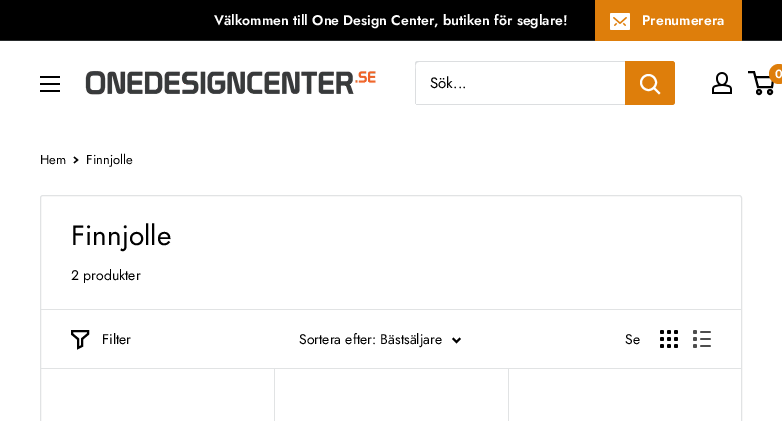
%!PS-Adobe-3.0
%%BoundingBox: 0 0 782 421
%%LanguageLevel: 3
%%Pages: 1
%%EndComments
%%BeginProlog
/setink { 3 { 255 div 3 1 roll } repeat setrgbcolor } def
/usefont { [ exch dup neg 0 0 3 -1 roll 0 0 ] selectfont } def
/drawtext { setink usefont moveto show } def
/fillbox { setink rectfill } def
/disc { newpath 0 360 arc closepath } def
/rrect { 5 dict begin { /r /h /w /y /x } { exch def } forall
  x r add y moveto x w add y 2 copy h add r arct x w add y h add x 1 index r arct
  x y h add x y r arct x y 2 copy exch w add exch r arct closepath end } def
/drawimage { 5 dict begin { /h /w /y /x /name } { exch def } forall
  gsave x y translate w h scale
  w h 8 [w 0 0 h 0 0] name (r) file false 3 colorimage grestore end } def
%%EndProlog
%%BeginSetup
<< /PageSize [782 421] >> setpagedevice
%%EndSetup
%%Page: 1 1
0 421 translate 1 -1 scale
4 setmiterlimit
0 0 782 421 255 255 255 fillbox
0 0 782 40 0 0 0 fillbox
0 40 782 1 41 44 45 fillbox
(Välkommen till One Design Center, butiken för seglare!) 214 25 /Jost-SemiBold 14 255 255 255 drawtext
595 0 147 41 222 126 11 fillbox
(assets/img1.rgb) 610 13 20 17 drawimage
(Prenumerera) 642 25 /Jost-SemiBold 14 255 255 255 drawtext
(assets/img2.rgb) 40 76 20 16 drawimage
(assets/img3.rgb) 85 70 291 25 drawimage
220 222 224 setink
416 104 moveto 416 105 417 105 418 105 curveto 672 105 lineto 674 105 675 104 675 102 curveto 675 64 lineto 675 63 675 62 674 62 curveto 674 95 lineto 674 97 676 104 671 104 curveto closepath fill
419 62 moveto 674 62 lineto 674 61 673 61 672 61 curveto 418 61 lineto 416 61 415 62 415 64 curveto 415 102 lineto 415 103 415 104 416 104 curveto 416 71 lineto 416 69 414 62 419 62 curveto closepath fill
(Sök...) 430 88 /Jost-Regular 15 0 0 0 drawtext
222 126 11 setink
625 61 moveto 672 61 lineto 673.5 61 675 62.5 675 64 curveto 675 102 lineto 675 103.5 673.5 105 672 105 curveto 625 105 lineto closepath fill
255 255 255 setink
2 setlinewidth
2 setlinecap
659 93 moveto 654 88 lineto stroke
0 setlinecap
648.5 82.5 7.5 disc stroke
(assets/img4.rgb) 712 72 20 22 drawimage
0 0 0 setink
759 92 2 disc stroke
770 92 2 disc stroke
755.5 77 moveto 773.5 77 lineto 772 87 lineto 758 87 lineto 754 72 lineto 748 72 lineto stroke
222 126 11 setink
779 74 10 disc fill
(0) 775 78 /Jost-SemiBold 12 255 255 255 drawtext
(Hem) 40 164 /Jost-Regular 13 0 0 0 drawtext
1.3 setlinewidth
2 setlinecap
74.5 157.5 moveto 77.5 160 lineto 74.5 162.5 lineto stroke
(Finnjolle) 86 164 /Jost-Regular 13 0 0 0 drawtext
225 227 228 setink
1 setlinewidth
0 setlinecap
40.5 195.5 701 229 2.5 rrect stroke
(Finnjolle) 71 245 /Jost-Regular 28 0 0 0 drawtext
(2 produkter) 71 280 /Jost-Regular 14 0 0 0 drawtext
41 309 700 1 225 227 228 fillbox
274 368 1 53 225 227 228 fillbox
508 368 1 53 225 227 228 fillbox
41 368 700 1 225 227 228 fillbox
0 0 0 setink
2 setlinewidth
2 setlinecap
88 334 moveto 82 339 lineto 82 346 lineto 78 348 lineto 78 339 lineto 72 334 lineto 72 331 lineto 88 331 lineto closepath stroke
(Filter) 102 344 /Jost-Regular 14 0 0 0 drawtext
(Sortera efter: Bästsäljare) 299 344 /Jost-Regular 14 0 0 0 drawtext
1.9 setlinewidth
459.5 339 moveto 456.5 342 lineto 453.5 339 lineto stroke
(Se) 625 344 /Jost-Regular 14 0 0 0 drawtext
(assets/img5.rgb) 660 330 18 18 drawimage
(assets/img6.rgb) 693 330 18 18 drawimage
showpage
%%EOF
